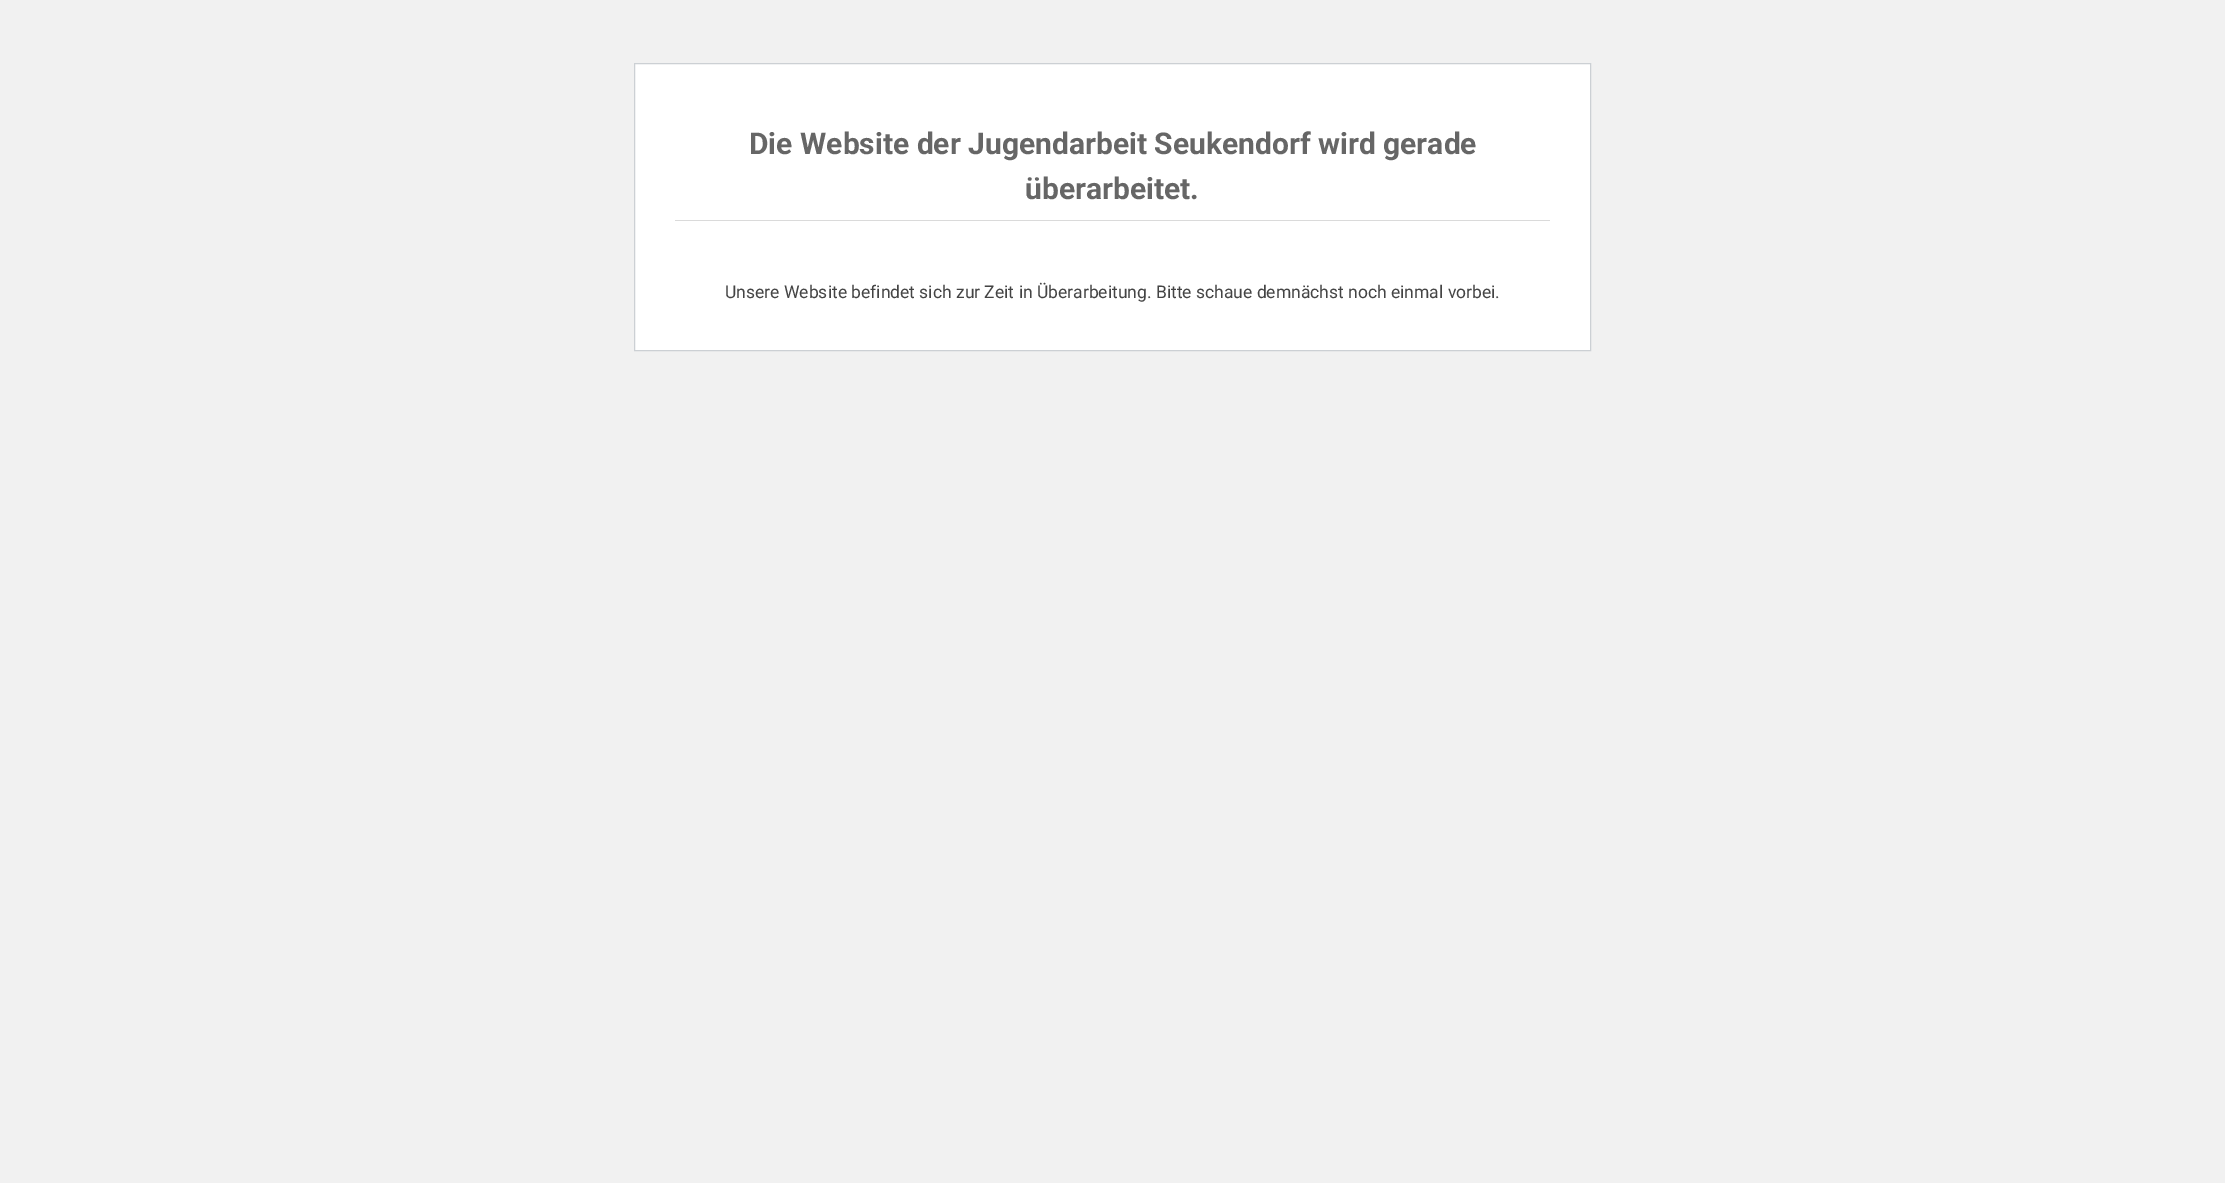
%!PS-Adobe-3.0
%%BoundingBox: 0 0 2225 1183
%%LanguageLevel: 3
%%Pages: 1
%%EndComments
%%BeginProlog
/setink { 3 { 255 div 3 1 roll } repeat setrgbcolor } def
/usefont { [ exch dup neg 0 0 3 -1 roll 0 0 ] selectfont } def
/drawtext { setink usefont moveto show } def
/fillbox { setink rectfill } def
%%EndProlog
%%BeginSetup
<< /PageSize [2225 1183] >> setpagedevice
%%EndSetup
%%Page: 1 1
0 1183 translate 1 -1 scale
4 setmiterlimit
0 0 2225 1183 241 241 241 fillbox
255 255 255 setink
634.5 63.5 moveto 1590.5 63.5 lineto 1590.5 350.5 lineto 634.5 350.5 lineto closepath gsave fill grestore
204 208 212 setink
stroke
675 220 875 1 218 218 218 fillbox
(Die Website der Jugendarbeit Seukendorf wird gerade) 749 154 /Roboto-Bold 30 102 102 102 drawtext
(überarbeitet.) 1025 199 /Roboto-Bold 30 102 102 102 drawtext
(Unsere Website befindet sich zur Zeit in Überarbeitung. Bitte schaue demnächst noch einmal vorbei.) 725 298 /Roboto-Regular 17.5 68 68 68 drawtext
showpage
%%EOF
